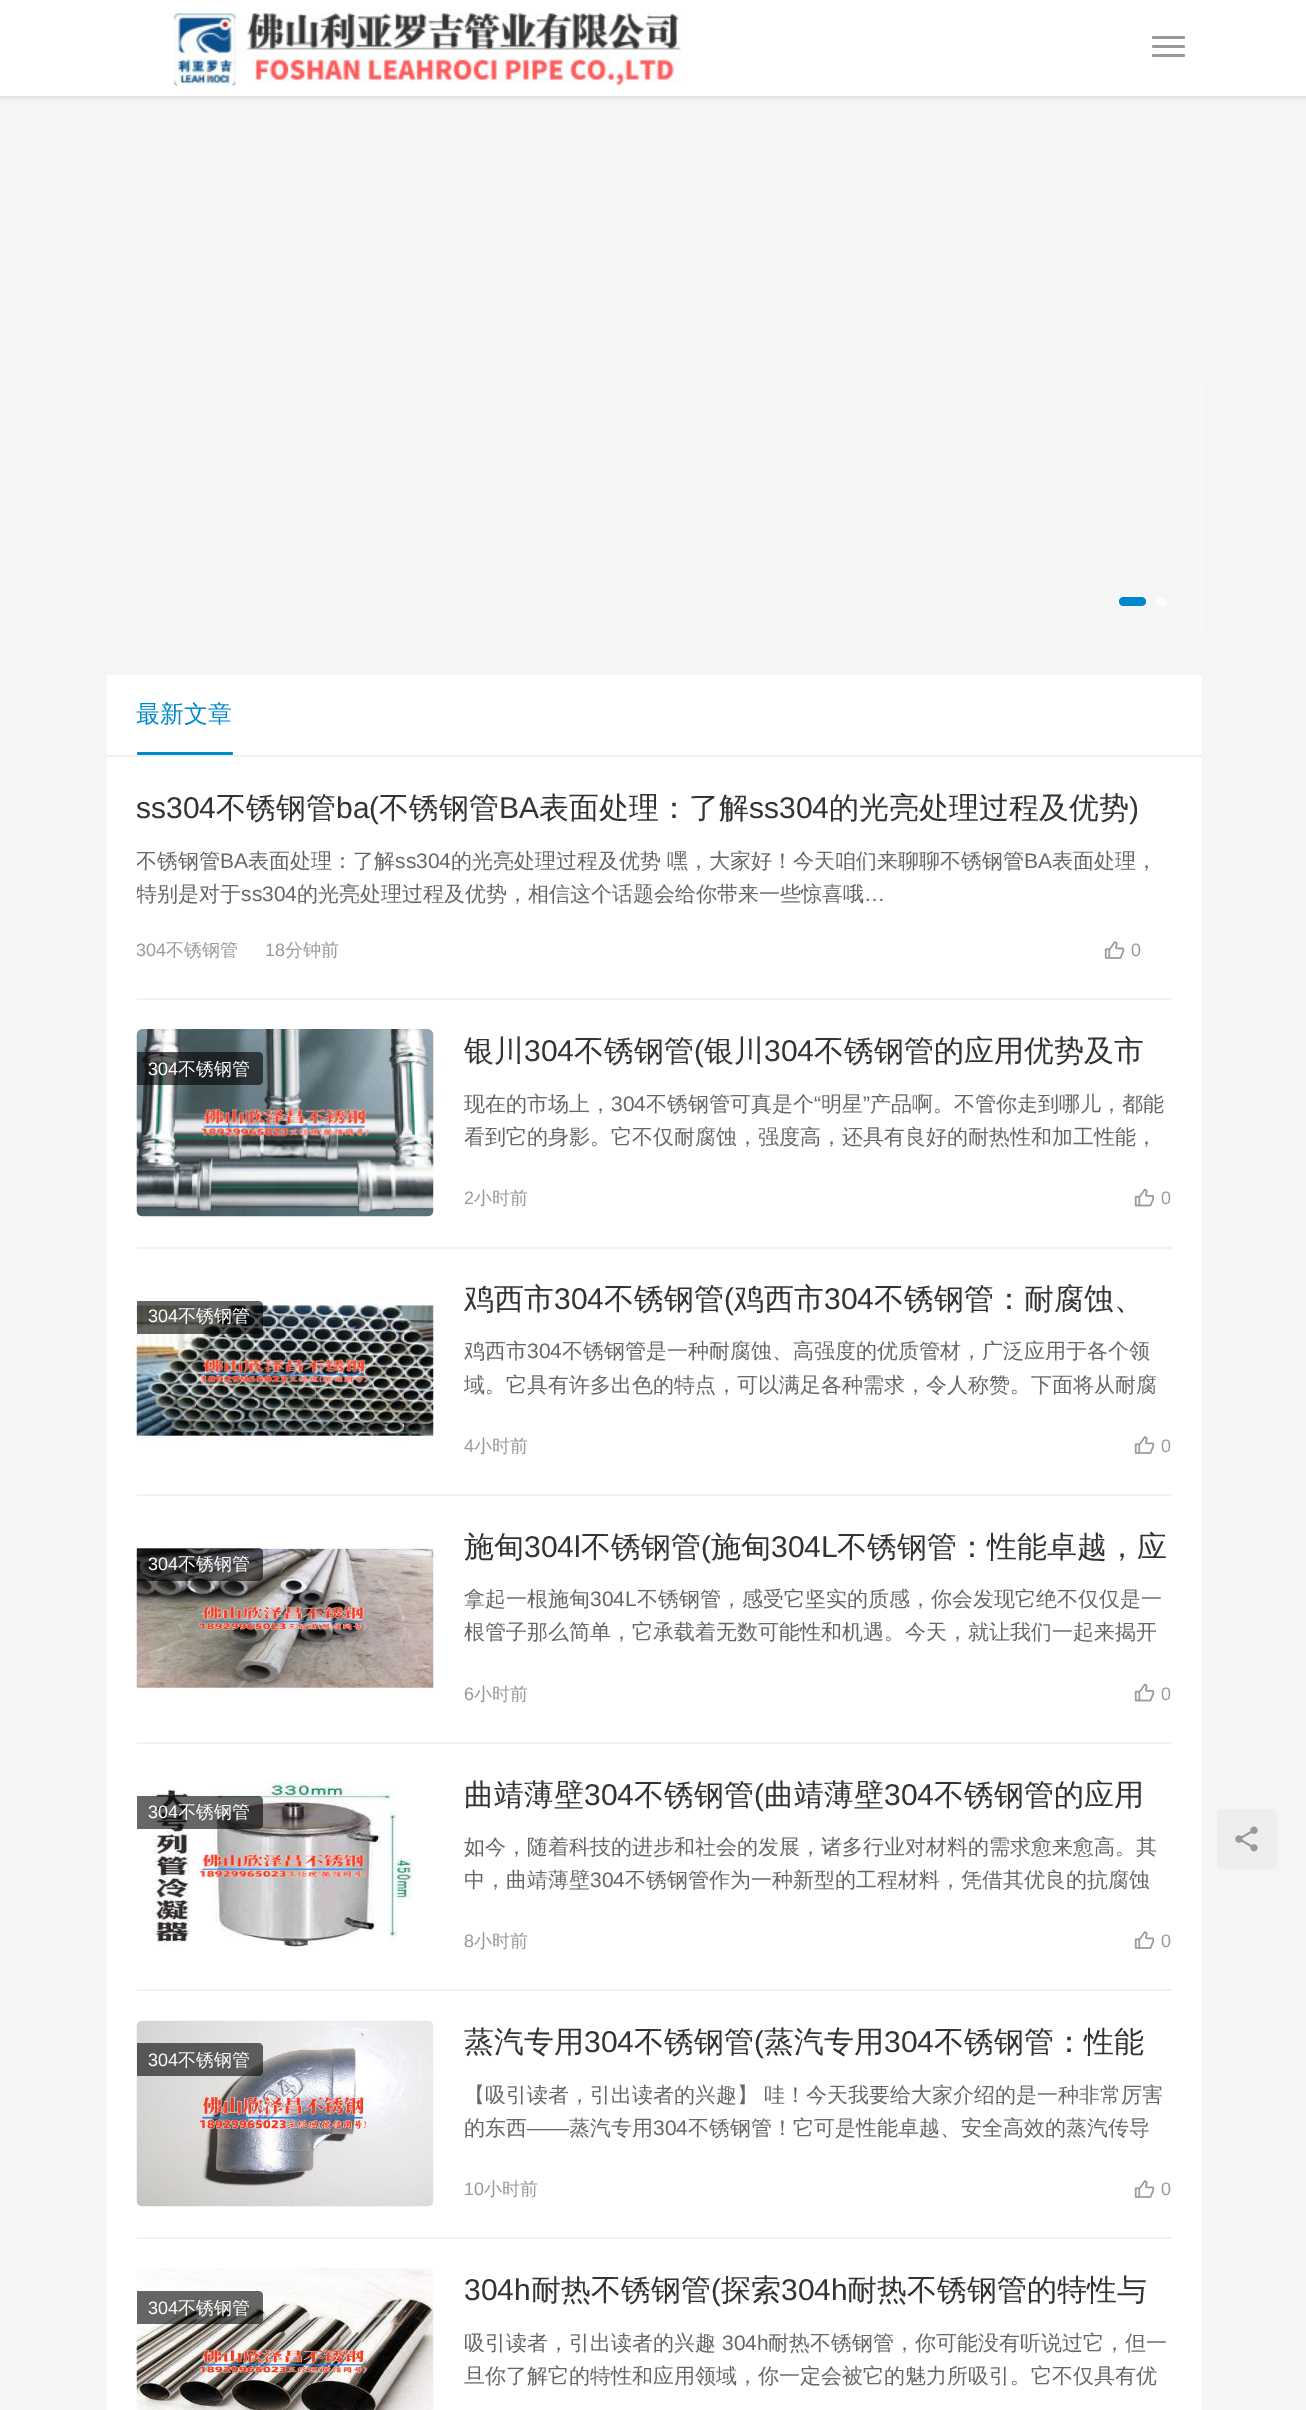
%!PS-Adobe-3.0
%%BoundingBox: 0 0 1306 2410
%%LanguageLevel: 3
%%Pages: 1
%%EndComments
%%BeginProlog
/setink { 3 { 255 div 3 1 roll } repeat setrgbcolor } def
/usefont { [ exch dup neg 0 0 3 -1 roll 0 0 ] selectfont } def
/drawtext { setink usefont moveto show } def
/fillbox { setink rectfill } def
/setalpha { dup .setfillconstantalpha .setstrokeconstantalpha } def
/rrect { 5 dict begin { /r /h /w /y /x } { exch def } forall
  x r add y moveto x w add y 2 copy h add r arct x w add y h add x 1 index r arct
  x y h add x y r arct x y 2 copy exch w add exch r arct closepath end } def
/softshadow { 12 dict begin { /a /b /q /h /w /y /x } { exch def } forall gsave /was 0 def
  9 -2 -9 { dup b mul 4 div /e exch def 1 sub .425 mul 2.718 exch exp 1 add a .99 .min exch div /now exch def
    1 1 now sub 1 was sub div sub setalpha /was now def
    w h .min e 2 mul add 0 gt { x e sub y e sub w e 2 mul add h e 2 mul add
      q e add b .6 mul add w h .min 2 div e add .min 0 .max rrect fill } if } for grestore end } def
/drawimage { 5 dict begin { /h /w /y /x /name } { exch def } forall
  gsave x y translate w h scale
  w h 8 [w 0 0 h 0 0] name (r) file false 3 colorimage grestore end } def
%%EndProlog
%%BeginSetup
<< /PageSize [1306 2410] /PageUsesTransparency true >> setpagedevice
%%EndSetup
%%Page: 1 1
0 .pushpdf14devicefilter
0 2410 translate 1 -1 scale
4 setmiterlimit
0 0 1306 2410 245 245 245 fillbox
0 0 0 setink
-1 -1 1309 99 0 2 0.1 softshadow
0 0 1306 96 255 255 255 fillbox
(assets/img1.rgb) 173 10 509 76 drawimage
153 153 153 setink
1152 36 33 3 1.5 rrect fill
1152 45 33 3 1.5 rrect fill
1152 54 33 3 1.5 rrect fill
0 136 204 setink
1119 597 27 9 4.5 rrect fill
252 252 252 setink
1155 597 12 9 4.5 rrect fill
1201 378 1 254 251 251 251 fillbox
107 675 1095 1735 255 255 255 fillbox
107 755 1095 2 239 239 239 fillbox
(最新文章) 136 722 /WenQuanYiZenHei-Medium 24 0 136 204 drawtext
137 752 96 3 1.5 rrect fill
137 998 1035 2 242 242 242 fillbox
(ss304) 136 818 /LiberationSans-Regular 30 51 51 51 drawtext
(不锈钢管) 216 818 /WenQuanYiZenHei-Medium 30 51 51 51 drawtext
(ba\() 336 818 /LiberationSans-Regular 30 51 51 51 drawtext
(不锈钢管) 379 818 /WenQuanYiZenHei-Medium 30 51 51 51 drawtext
(BA) 499 818 /LiberationSans-Regular 30 51 51 51 drawtext
(表面处理：了解) 539 818 /WenQuanYiZenHei-Medium 30 51 51 51 drawtext
(ss304) 749 818 /LiberationSans-Regular 30 51 51 51 drawtext
(的光亮处理过程及优势) 829 818 /WenQuanYiZenHei-Medium 30 51 51 51 drawtext
(\)) 1129 818 /LiberationSans-Regular 30 51 51 51 drawtext
gsave
137 843 1035 66 rectclip
(不锈钢管) 136 868 /WenQuanYiZenHei-Medium 21 102 102 102 drawtext
grestore
(BA) 220 868 /LiberationSans-Regular 21 102 102 102 drawtext
(表面处理：了解) 248 868 /WenQuanYiZenHei-Medium 21 102 102 102 drawtext
(ss304) 395 868 /LiberationSans-Regular 21 102 102 102 drawtext
(的光亮处理过程及优势 嘿，大家好！今天咱们来聊聊不锈钢管) 451 868 /WenQuanYiZenHei-Medium 21 102 102 102 drawtext
(BA) 1024 868 /LiberationSans-Regular 21 102 102 102 drawtext
(表面处理，) 1052 868 /WenQuanYiZenHei-Medium 21 102 102 102 drawtext
gsave
137 843 1035 66 rectclip
(特别是对于) 136 901 /WenQuanYiZenHei-Medium 21 102 102 102 drawtext
grestore
(ss304) 241 901 /LiberationSans-Regular 21 102 102 102 drawtext
(的光亮处理过程及优势，相信这个话题会给你带来一些惊喜哦) 297 901 /WenQuanYiZenHei-Medium 21 102 102 102 drawtext
(…) 864 901 /LiberationSans-Regular 21 102 102 102 drawtext
gsave
137 756 1035 242 rectclip
(304) 136 956 /LiberationSans-Regular 18 153 153 153 drawtext
grestore
(不锈钢管) 166 956 /WenQuanYiZenHei-Medium 18 153 153 153 drawtext
(18) 265 956 /LiberationSans-Regular 18 153 153 153 drawtext
(分钟前) 285 956 /WenQuanYiZenHei-Medium 18 153 153 153 drawtext
(assets/img2.rgb) 1104 941 21 18 drawimage
(0) 1131 956 /LiberationSans-Regular 18 153 153 153 drawtext
137 1247 1035 2 242 242 242 fillbox
(assets/img3.rgb) 136 1029 298 188 drawimage
0.6 setalpha
0 0 0 setink
137 1052 moveto 258 1052 lineto 261 1052 263 1054 263 1057 curveto 263 1080 lineto 263 1083 261 1085 258 1085 curveto 137 1085 lineto closepath fill
1 setalpha
(304) 148 1075 /LiberationSans-Regular 18 255 255 255 drawtext
(不锈钢管) 178 1075 /WenQuanYiZenHei-Medium 18 255 255 255 drawtext
(银川) 464 1061 /WenQuanYiZenHei-Medium 30 51 51 51 drawtext
(304) 524 1061 /LiberationSans-Regular 30 51 51 51 drawtext
(不锈钢管) 574 1061 /WenQuanYiZenHei-Medium 30 51 51 51 drawtext
(\() 694 1061 /LiberationSans-Regular 30 51 51 51 drawtext
(银川) 704 1061 /WenQuanYiZenHei-Medium 30 51 51 51 drawtext
(304) 764 1061 /LiberationSans-Regular 30 51 51 51 drawtext
(不锈钢管的应用优势及市) 814 1061 /WenQuanYiZenHei-Medium 30 51 51 51 drawtext
(现在的市场上，) 464 1111 /WenQuanYiZenHei-Medium 21 102 102 102 drawtext
(304) 611 1111 /LiberationSans-Regular 21 102 102 102 drawtext
(不锈钢管可真是个) 646 1111 /WenQuanYiZenHei-Medium 21 102 102 102 drawtext
(“) 814 1111 /LiberationSans-Regular 21 102 102 102 drawtext
(明星) 821 1111 /WenQuanYiZenHei-Medium 21 102 102 102 drawtext
(”) 863 1111 /LiberationSans-Regular 21 102 102 102 drawtext
(产品啊。不管你走到哪儿，都能) 870 1111 /WenQuanYiZenHei-Medium 21 102 102 102 drawtext
(看到它的身影。它不仅耐腐蚀，强度高，还具有良好的耐热性和加工性能，) 464 1144 /WenQuanYiZenHei-Medium 21 102 102 102 drawtext
(2) 464 1204 /LiberationSans-Regular 18 153 153 153 drawtext
(小时前) 474 1204 /WenQuanYiZenHei-Medium 18 153 153 153 drawtext
(assets/img4.rgb) 1134 1188 21 19 drawimage
(0) 1161 1204 /LiberationSans-Regular 18 153 153 153 drawtext
137 1494 1035 2 242 242 242 fillbox
(assets/img5.rgb) 136 1303 298 143 drawimage
0.6 setalpha
0 0 0 setink
137 1301 moveto 258 1301 lineto 261 1301 263 1303 263 1306 curveto 263 1329 lineto 263 1332 261 1334 258 1334 curveto 137 1334 lineto closepath fill
1 setalpha
(304) 148 1322 /LiberationSans-Regular 18 255 255 255 drawtext
(不锈钢管) 178 1322 /WenQuanYiZenHei-Medium 18 255 255 255 drawtext
(鸡西市) 464 1309 /WenQuanYiZenHei-Medium 30 51 51 51 drawtext
(304) 554 1309 /LiberationSans-Regular 30 51 51 51 drawtext
(不锈钢管) 604 1309 /WenQuanYiZenHei-Medium 30 51 51 51 drawtext
(\() 724 1309 /LiberationSans-Regular 30 51 51 51 drawtext
(鸡西市) 734 1309 /WenQuanYiZenHei-Medium 30 51 51 51 drawtext
(304) 824 1309 /LiberationSans-Regular 30 51 51 51 drawtext
(不锈钢管：耐腐蚀、) 874 1309 /WenQuanYiZenHei-Medium 30 51 51 51 drawtext
(鸡西市) 464 1358 /WenQuanYiZenHei-Medium 21 102 102 102 drawtext
(304) 527 1358 /LiberationSans-Regular 21 102 102 102 drawtext
(不锈钢管是一种耐腐蚀、高强度的优质管材，广泛应用于各个领) 562 1358 /WenQuanYiZenHei-Medium 21 102 102 102 drawtext
(域。它具有许多出色的特点，可以满足各种需求，令人称赞。下面将从耐腐) 464 1392 /WenQuanYiZenHei-Medium 21 102 102 102 drawtext
(4) 464 1452 /LiberationSans-Regular 18 153 153 153 drawtext
(小时前) 474 1452 /WenQuanYiZenHei-Medium 18 153 153 153 drawtext
(assets/img2.rgb) 1134 1436 21 18 drawimage
(0) 1161 1452 /LiberationSans-Regular 18 153 153 153 drawtext
137 1742 1035 2 242 242 242 fillbox
(assets/img6.rgb) 136 1547 298 145 drawimage
0.6 setalpha
0 0 0 setink
137 1548 moveto 258 1548 lineto 261 1548 263 1550 263 1553 curveto 263 1576 lineto 263 1579 261 1581 258 1581 curveto 137 1581 lineto closepath fill
1 setalpha
(304) 148 1570 /LiberationSans-Regular 18 255 255 255 drawtext
(不锈钢管) 178 1570 /WenQuanYiZenHei-Medium 18 255 255 255 drawtext
(施甸) 464 1557 /WenQuanYiZenHei-Medium 30 51 51 51 drawtext
(304l) 524 1557 /LiberationSans-Regular 30 51 51 51 drawtext
(不锈钢管) 581 1557 /WenQuanYiZenHei-Medium 30 51 51 51 drawtext
(\() 701 1557 /LiberationSans-Regular 30 51 51 51 drawtext
(施甸) 711 1557 /WenQuanYiZenHei-Medium 30 51 51 51 drawtext
(304L) 771 1557 /LiberationSans-Regular 30 51 51 51 drawtext
(不锈钢管：性能卓越，应) 837 1557 /WenQuanYiZenHei-Medium 30 51 51 51 drawtext
(拿起一根施甸) 464 1606 /WenQuanYiZenHei-Medium 21 102 102 102 drawtext
(304L) 590 1606 /LiberationSans-Regular 21 102 102 102 drawtext
(不锈钢管，感受它坚实的质感，你会发现它绝不仅仅是一) 637 1606 /WenQuanYiZenHei-Medium 21 102 102 102 drawtext
(根管子那么简单，它承载着无数可能性和机遇。今天，就让我们一起来揭开) 464 1639 /WenQuanYiZenHei-Medium 21 102 102 102 drawtext
(6) 464 1700 /LiberationSans-Regular 18 153 153 153 drawtext
(小时前) 474 1700 /WenQuanYiZenHei-Medium 18 153 153 153 drawtext
(assets/img4.rgb) 1134 1683 21 19 drawimage
(0) 1161 1700 /LiberationSans-Regular 18 153 153 153 drawtext
137 1989 1035 2 242 242 242 fillbox
(assets/img7.rgb) 152 1782 261 168 drawimage
0.6 setalpha
0 0 0 setink
137 1796 moveto 258 1796 lineto 261 1796 263 1798 263 1801 curveto 263 1824 lineto 263 1827 261 1829 258 1829 curveto 137 1829 lineto closepath fill
1 setalpha
(304) 148 1818 /LiberationSans-Regular 18 255 255 255 drawtext
(不锈钢管) 178 1818 /WenQuanYiZenHei-Medium 18 255 255 255 drawtext
(曲靖薄壁) 464 1805 /WenQuanYiZenHei-Medium 30 51 51 51 drawtext
(304) 584 1805 /LiberationSans-Regular 30 51 51 51 drawtext
(不锈钢管) 634 1805 /WenQuanYiZenHei-Medium 30 51 51 51 drawtext
(\() 754 1805 /LiberationSans-Regular 30 51 51 51 drawtext
(曲靖薄壁) 764 1805 /WenQuanYiZenHei-Medium 30 51 51 51 drawtext
(304) 884 1805 /LiberationSans-Regular 30 51 51 51 drawtext
(不锈钢管的应用) 934 1805 /WenQuanYiZenHei-Medium 30 51 51 51 drawtext
(如今，随着科技的进步和社会的发展，诸多行业对材料的需求愈来愈高。其) 464 1854 /WenQuanYiZenHei-Medium 21 102 102 102 drawtext
(中，曲靖薄壁) 464 1887 /WenQuanYiZenHei-Medium 21 102 102 102 drawtext
(304) 590 1887 /LiberationSans-Regular 21 102 102 102 drawtext
(不锈钢管作为一种新型的工程材料，凭借其优良的抗腐蚀) 625 1887 /WenQuanYiZenHei-Medium 21 102 102 102 drawtext
(8) 464 1947 /LiberationSans-Regular 18 153 153 153 drawtext
(小时前) 474 1947 /WenQuanYiZenHei-Medium 18 153 153 153 drawtext
(assets/img2.rgb) 1134 1931 21 18 drawimage
(0) 1161 1947 /LiberationSans-Regular 18 153 153 153 drawtext
137 2237 1035 2 242 242 242 fillbox
(assets/img8.rgb) 136 2020 298 187 drawimage
0.6 setalpha
0 0 0 setink
137 2043 moveto 258 2043 lineto 261 2043 263 2045 263 2048 curveto 263 2071 lineto 263 2074 261 2076 258 2076 curveto 137 2076 lineto closepath fill
1 setalpha
(304) 148 2066 /LiberationSans-Regular 18 255 255 255 drawtext
(不锈钢管) 178 2066 /WenQuanYiZenHei-Medium 18 255 255 255 drawtext
(蒸汽专用) 464 2052 /WenQuanYiZenHei-Medium 30 51 51 51 drawtext
(304) 584 2052 /LiberationSans-Regular 30 51 51 51 drawtext
(不锈钢管) 634 2052 /WenQuanYiZenHei-Medium 30 51 51 51 drawtext
(\() 754 2052 /LiberationSans-Regular 30 51 51 51 drawtext
(蒸汽专用) 764 2052 /WenQuanYiZenHei-Medium 30 51 51 51 drawtext
(304) 884 2052 /LiberationSans-Regular 30 51 51 51 drawtext
(不锈钢管：性能) 934 2052 /WenQuanYiZenHei-Medium 30 51 51 51 drawtext
(【吸引读者，引出读者的兴趣】 哇！今天我要给大家介绍的是一种非常厉害) 464 2102 /WenQuanYiZenHei-Medium 21 102 102 102 drawtext
(的东西) 464 2135 /WenQuanYiZenHei-Medium 21 102 102 102 drawtext
(——) 527 2135 /LiberationSans-Regular 21 102 102 102 drawtext
(蒸汽专用) 569 2135 /WenQuanYiZenHei-Medium 21 102 102 102 drawtext
(304) 653 2135 /LiberationSans-Regular 21 102 102 102 drawtext
(不锈钢管！它可是性能卓越、安全高效的蒸汽传导) 688 2135 /WenQuanYiZenHei-Medium 21 102 102 102 drawtext
(10) 464 2195 /LiberationSans-Regular 18 153 153 153 drawtext
(小时前) 484 2195 /WenQuanYiZenHei-Medium 18 153 153 153 drawtext
(assets/img2.rgb) 1134 2180 21 18 drawimage
(0) 1161 2195 /LiberationSans-Regular 18 153 153 153 drawtext
(assets/img9.rgb) 136 2268 298 142 drawimage
0.6 setalpha
0 0 0 setink
137 2291 moveto 258 2291 lineto 261 2291 263 2293 263 2296 curveto 263 2319 lineto 263 2322 261 2324 258 2324 curveto 137 2324 lineto closepath fill
1 setalpha
(304) 148 2314 /LiberationSans-Regular 18 255 255 255 drawtext
(不锈钢管) 178 2314 /WenQuanYiZenHei-Medium 18 255 255 255 drawtext
(304h) 464 2300 /LiberationSans-Regular 30 51 51 51 drawtext
(耐热不锈钢管) 531 2300 /WenQuanYiZenHei-Medium 30 51 51 51 drawtext
(\() 711 2300 /LiberationSans-Regular 30 51 51 51 drawtext
(探索) 721 2300 /WenQuanYiZenHei-Medium 30 51 51 51 drawtext
(304h) 781 2300 /LiberationSans-Regular 30 51 51 51 drawtext
(耐热不锈钢管的特性与) 847 2300 /WenQuanYiZenHei-Medium 30 51 51 51 drawtext
(吸引读者，引出读者的兴趣) 464 2350 /WenQuanYiZenHei-Medium 21 102 102 102 drawtext
(304h) 722 2350 /LiberationSans-Regular 21 102 102 102 drawtext
(耐热不锈钢管，你可能没有听说过它，但一) 768 2350 /WenQuanYiZenHei-Medium 21 102 102 102 drawtext
(旦你了解它的特性和应用领域，你一定会被它的魅力所吸引。它不仅具有优) 464 2383 /WenQuanYiZenHei-Medium 21 102 102 102 drawtext
238 238 238 setink
1217 1809 60 60 5 rrect fill
(assets/img10.rgb) 1235 1826 23 26 drawimage
.poppdf14devicefilter showpage
%%EOF
